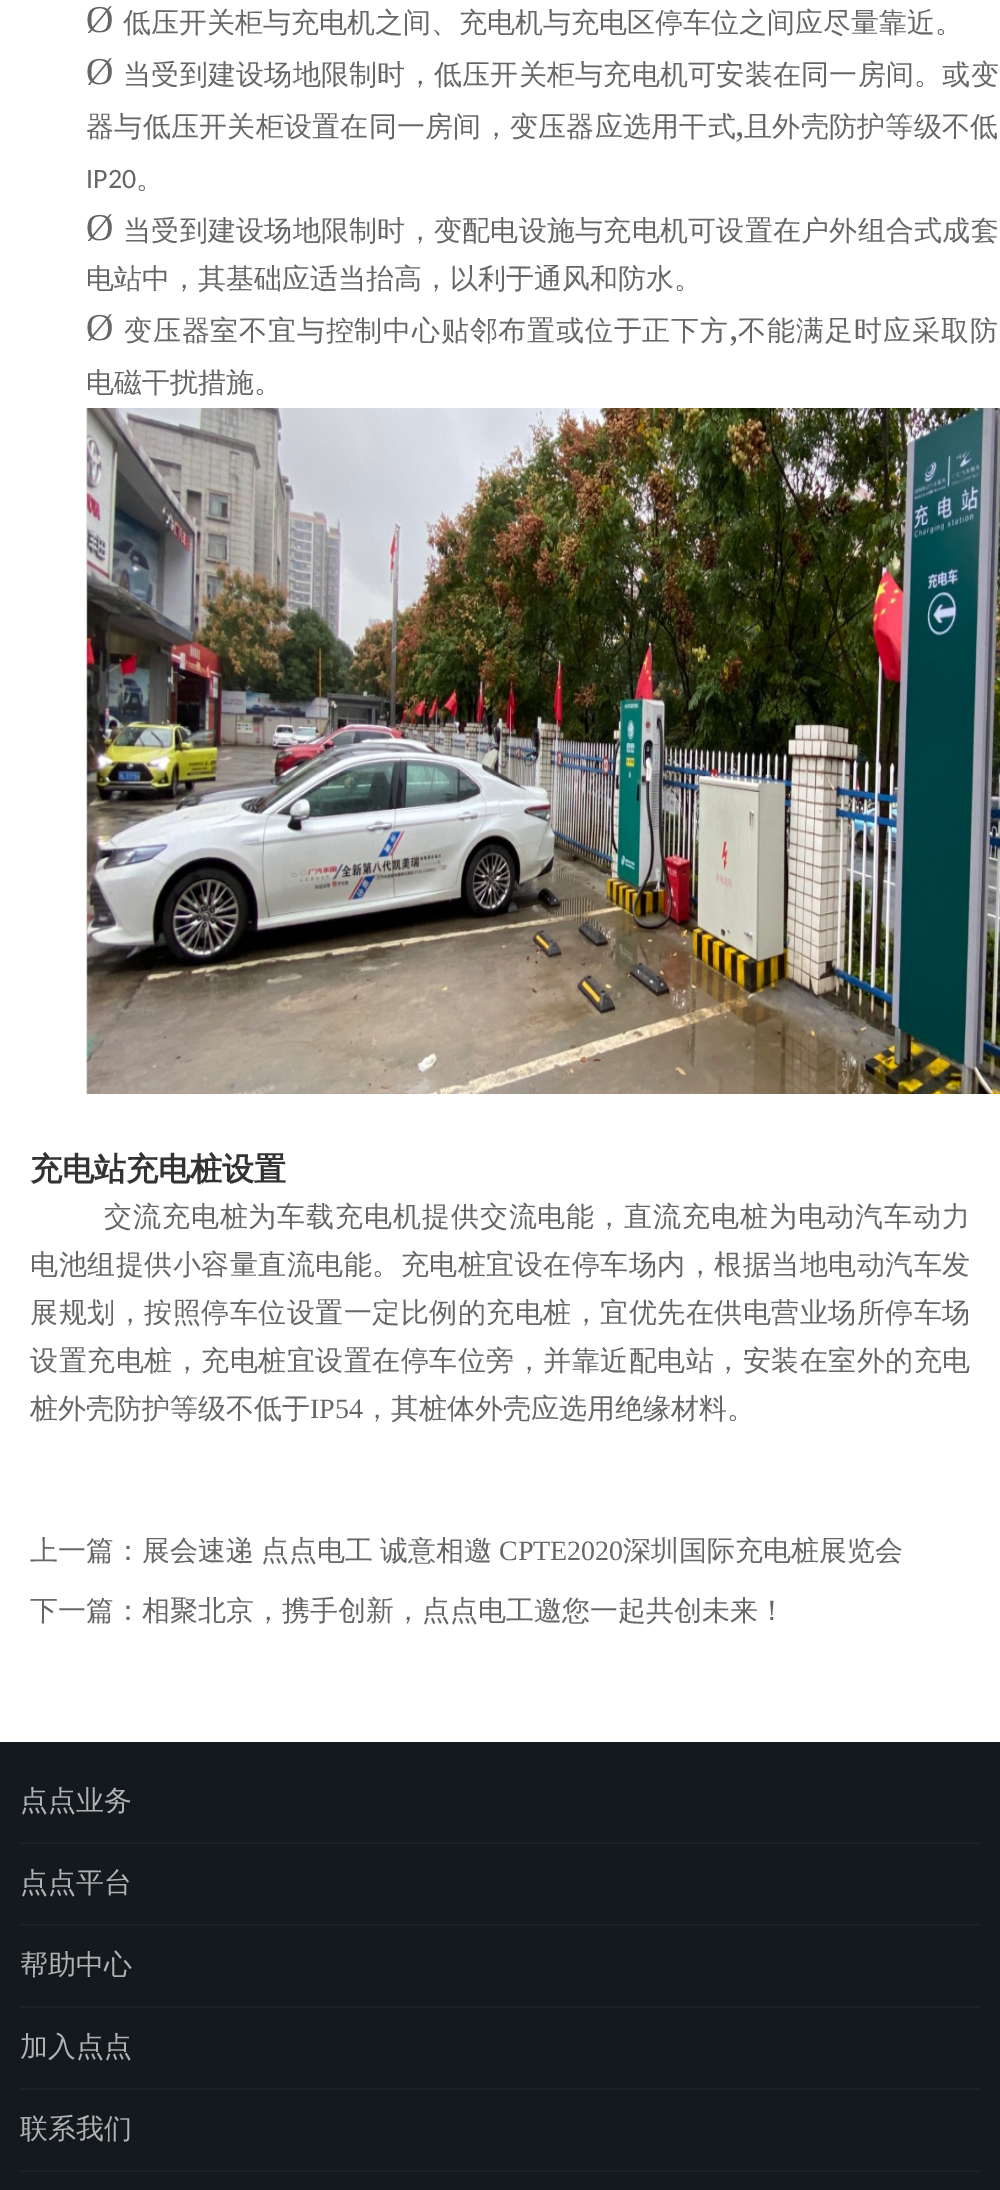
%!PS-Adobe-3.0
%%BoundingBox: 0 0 1000 2190
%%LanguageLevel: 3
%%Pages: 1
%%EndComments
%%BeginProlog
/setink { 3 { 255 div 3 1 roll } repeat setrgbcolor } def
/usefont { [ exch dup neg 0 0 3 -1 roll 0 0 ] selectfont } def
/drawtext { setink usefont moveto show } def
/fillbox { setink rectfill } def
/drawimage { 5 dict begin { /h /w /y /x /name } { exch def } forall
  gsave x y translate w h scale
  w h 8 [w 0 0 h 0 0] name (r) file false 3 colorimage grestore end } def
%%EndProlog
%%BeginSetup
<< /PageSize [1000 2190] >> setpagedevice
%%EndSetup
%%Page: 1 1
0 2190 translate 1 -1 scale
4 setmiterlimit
0 0 1000 2190 255 255 255 fillbox
(Ø) 86 32 /LiberationSerif-Regular 38 102 102 102 drawtext
(低压开关柜与充电机之间、充电机与充电区停车位之间应尽量靠近。) 123 32 /WenQuanYiZenHei-Medium 28 102 102 102 drawtext
(Ø) 86 84 /LiberationSerif-Regular 38 102 102 102 drawtext
/WenQuanYiZenHei-Medium 28 usefont
123 84 moveto 0.25 0 (当受到建设场地限制时，低压开关柜与充电机可安装在同一房间。或变) ashow
86 136 moveto 0.25 0 (器与低压开关柜设置在同一房间，变压器应选用干式) ashow
(,) 735 136 /LiberationSerif-Regular 38 102 102 102 drawtext
/WenQuanYiZenHei-Medium 28 usefont
744 136 moveto 0.25 0 (且外壳防护等级不低) ashow
(IP20) 86 188 /Carlito-Regular 28 102 102 102 drawtext
(。) 136 188 /WenQuanYiZenHei-Medium 28 102 102 102 drawtext
(Ø) 86 240 /LiberationSerif-Regular 38 102 102 102 drawtext
/WenQuanYiZenHei-Medium 28 usefont
123 240 moveto 0.25 0 (当受到建设场地限制时，变配电设施与充电机可设置在户外组合式成套) ashow
(电站中，其基础应适当抬高，以利于通风和防水。) 86 288 /WenQuanYiZenHei-Medium 28 102 102 102 drawtext
(Ø) 86 340 /LiberationSerif-Regular 38 102 102 102 drawtext
/WenQuanYiZenHei-Medium 28 usefont
124 340 moveto 0.8 0 (变压器室不宜与控制中心贴邻布置或位于正下方) ashow
(,) 729 340 /LiberationSerif-Regular 38 102 102 102 drawtext
/WenQuanYiZenHei-Medium 28 usefont
738 340 moveto 1 0 (不能满足时应采取防) ashow
(电磁干扰措施。) 86 392 /WenQuanYiZenHei-Medium 28 102 102 102 drawtext
(assets/img1.rgb) 86 408 914 686 drawimage
(充电站充电桩设置) 30 1180 /WenQuanYiZenHei-Bold 32 51 51 51 drawtext
/WenQuanYiZenHei-Medium 28 usefont
102 102 102 setink
104 1226 moveto 0.9 0 (交流充电桩为车载充电机提供交流电能，直流充电桩为电动汽车动力) ashow
30 1274 moveto 0.5 0 (电池组提供小容量直流电能。充电桩宜设在停车场内，根据当地电动汽车发) ashow
30 1322 moveto 0.5 0 (展规划，按照停车位设置一定比例的充电桩，宜优先在供电营业场所停车场) ashow
30 1370 moveto 0.5 0 (设置充电桩，充电桩宜设置在停车位旁，并靠近配电站，安装在室外的充电) ashow
(桩外壳防护等级不低于) 30 1418 /WenQuanYiZenHei-Medium 28 102 102 102 drawtext
(IP54) 310 1418 /LiberationSerif-Regular 28 102 102 102 drawtext
(，其桩体外壳应选用绝缘材料。) 363 1418 /WenQuanYiZenHei-Medium 28 102 102 102 drawtext
(上一篇：展会速递) 30 1560 /WenQuanYiZenHei-Medium 28 102 102 102 drawtext
261 1560 moveto -1 0 32 (点点电工 诚意相邀) widthshow
(CPTE2020) 499 1560 /LiberationSerif-Regular 28 102 102 102 drawtext
(深圳国际充电桩展览会) 623 1560 /WenQuanYiZenHei-Medium 28 102 102 102 drawtext
(下一篇：相聚北京，携手创新，点点电工邀您一起共创未来！) 30 1620 /WenQuanYiZenHei-Medium 28 102 102 102 drawtext
0 1742 1000 448 20 25 30 fillbox
20 1842 960 2 27 32 37 fillbox
(点点业务) 20 1810 /WenQuanYiZenHei-Medium 28 175 177 179 drawtext
20 1924 960 2 27 32 37 fillbox
(点点平台) 20 1892 /WenQuanYiZenHei-Medium 28 175 177 179 drawtext
20 2006 960 2 27 32 37 fillbox
(帮助中心) 20 1974 /WenQuanYiZenHei-Medium 28 175 177 179 drawtext
20 2088 960 2 27 32 37 fillbox
(加入点点) 20 2056 /WenQuanYiZenHei-Medium 28 175 177 179 drawtext
20 2170 960 2 27 32 37 fillbox
(联系我们) 20 2138 /WenQuanYiZenHei-Medium 28 175 177 179 drawtext
showpage
%%EOF
